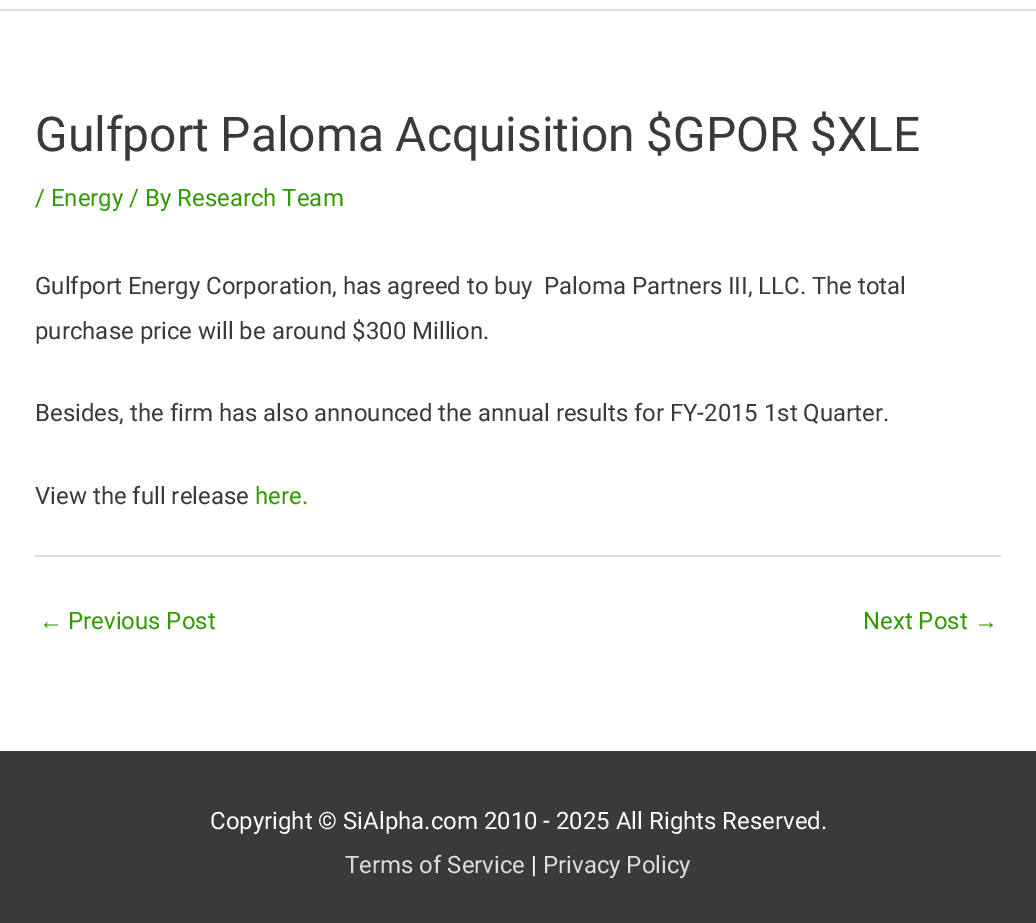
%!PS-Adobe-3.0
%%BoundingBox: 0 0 1036 923
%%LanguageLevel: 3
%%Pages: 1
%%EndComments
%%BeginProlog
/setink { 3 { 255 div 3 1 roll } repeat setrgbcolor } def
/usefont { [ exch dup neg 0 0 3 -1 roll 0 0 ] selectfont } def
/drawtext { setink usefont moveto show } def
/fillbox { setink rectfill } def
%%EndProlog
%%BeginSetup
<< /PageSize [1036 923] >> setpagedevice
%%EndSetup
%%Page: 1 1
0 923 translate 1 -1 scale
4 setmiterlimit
0 0 1036 923 255 255 255 fillbox
0 9 1036 2 221 221 221 fillbox
(Gulfport Paloma Acquisition $GPOR $XLE) 35 151 /Roboto-Regular 47.9 58 58 58 drawtext
(/ Energy / By Research Team) 35 206 /Roboto-Regular 23.95 49 154 0 drawtext
(Gulfport Energy Corporation, has agreed to buy  Paloma Partners III, LLC. The total) 35 294 /Roboto-Regular 23.95 58 58 58 drawtext
(purchase price will be around $300 Million.) 35 339 /Roboto-Regular 23.95 58 58 58 drawtext
(Besides, the firm has also announced the annual results for FY-2015 1st Quarter.) 35 421 /Roboto-Regular 23.95 58 58 58 drawtext
(View the full release) 35 504 /Roboto-Regular 23.95 58 58 58 drawtext
(here.) 255 504 /Roboto-Regular 23.95 49 154 0 drawtext
35 555 966 2 221 221 221 fillbox
(←) 39 629 /LiberationSans-Regular 23.95 49 154 0 drawtext
(Previous Post) 68 629 /Roboto-Regular 23.95 49 154 0 drawtext
(Next Post) 863 629 /Roboto-Regular 23.95 49 154 0 drawtext
(→) 974 629 /LiberationSans-Regular 23.95 49 154 0 drawtext
0 751 1036 172 58 58 58 fillbox
(Copyright © SiAlpha.com 2010 - 2025 All Rights Reserved.) 210 829 /Roboto-Regular 23.95 255 255 255 drawtext
(Terms of Service) 345 873 /Roboto-Regular 23.95 221 221 221 drawtext
(|) 531 873 /Roboto-Regular 23.95 255 255 255 drawtext
(Privacy Policy) 543 873 /Roboto-Regular 23.95 221 221 221 drawtext
showpage
%%EOF
